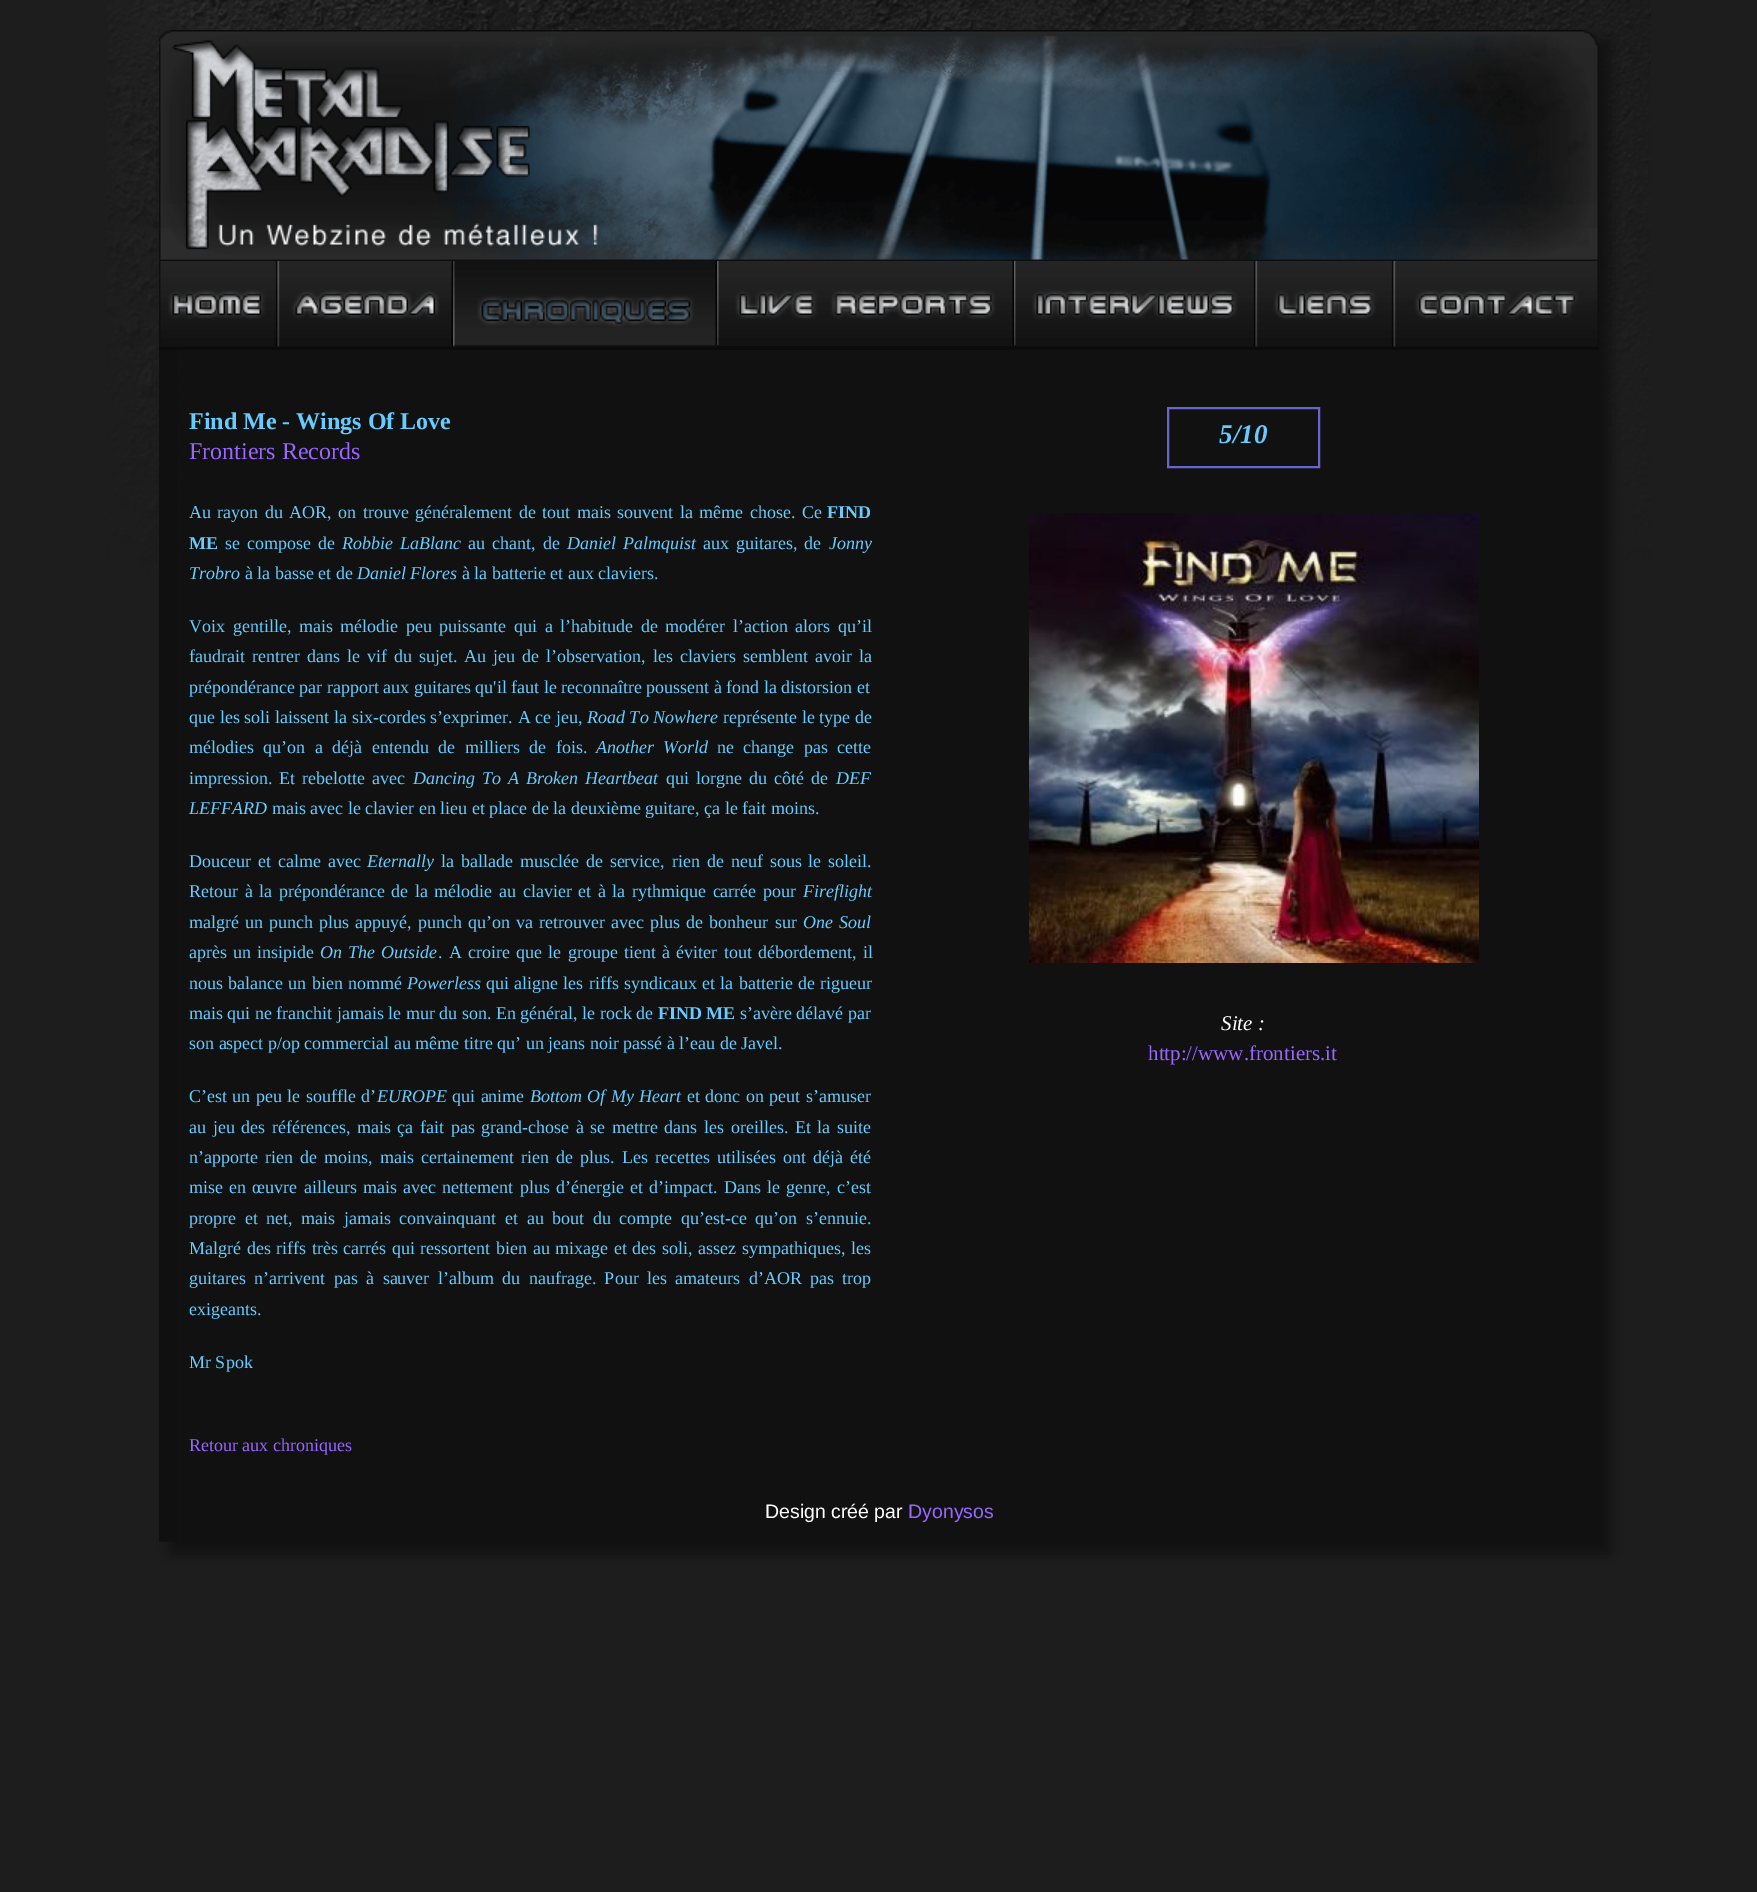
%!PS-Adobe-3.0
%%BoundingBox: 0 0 1757 1892
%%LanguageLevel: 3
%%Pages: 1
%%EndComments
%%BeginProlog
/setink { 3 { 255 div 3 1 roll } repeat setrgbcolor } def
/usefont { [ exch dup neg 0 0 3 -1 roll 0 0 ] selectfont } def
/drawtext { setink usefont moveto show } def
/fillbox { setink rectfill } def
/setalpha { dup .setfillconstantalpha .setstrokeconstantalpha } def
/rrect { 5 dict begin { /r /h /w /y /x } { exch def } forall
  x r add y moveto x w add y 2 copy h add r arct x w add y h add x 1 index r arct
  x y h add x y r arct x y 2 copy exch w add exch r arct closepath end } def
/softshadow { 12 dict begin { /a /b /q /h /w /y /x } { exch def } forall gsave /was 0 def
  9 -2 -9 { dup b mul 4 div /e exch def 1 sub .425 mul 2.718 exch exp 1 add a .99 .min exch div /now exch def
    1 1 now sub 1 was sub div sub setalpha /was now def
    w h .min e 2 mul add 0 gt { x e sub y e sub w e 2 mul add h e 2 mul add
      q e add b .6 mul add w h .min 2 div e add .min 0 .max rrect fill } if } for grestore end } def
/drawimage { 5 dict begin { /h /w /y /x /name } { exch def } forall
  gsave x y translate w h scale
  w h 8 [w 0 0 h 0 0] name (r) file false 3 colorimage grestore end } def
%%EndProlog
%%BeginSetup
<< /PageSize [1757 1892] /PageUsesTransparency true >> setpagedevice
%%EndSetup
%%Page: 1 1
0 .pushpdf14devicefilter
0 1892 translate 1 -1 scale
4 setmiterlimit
0 0 1757 1892 29 29 29 fillbox
(assets/img1.rgb) 107 0 1544 574 drawimage
16 16 16 setink
170 41 1440 1512 0 7.5 1 softshadow
(assets/img2.rgb) 159 30 1440 231 drawimage
159 346 1440 4 11 11 11 fillbox
(assets/img3.rgb) 159 261 119 86 drawimage
(assets/img4.rgb) 277 261 176 86 drawimage
(assets/img5.rgb) 453 261 264 86 drawimage
(assets/img6.rgb) 717 261 297 85 drawimage
(assets/img7.rgb) 1014 261 242 86 drawimage
(assets/img8.rgb) 1255 261 139 86 drawimage
(assets/img9.rgb) 1393 261 206 86 drawimage
159 350 19 1192 16 16 16 fillbox
(Find Me - Wings Of Love) 189 429 /LiberationSerif-Bold 24 102 204 255 drawtext
(Frontiers Records) 189 459 /LiberationSerif-Regular 24 153 102 255 drawtext
/LiberationSerif-Regular 18 usefont
102 204 255 setink
189 518 moveto 2 0 32 (Au rayon du AOR, on trouve généralement de tout mais souvent la même chose. Ce) widthshow
(FIND) 827 518 /LiberationSerif-Bold 18 102 204 255 drawtext
(ME) 189 549 /LiberationSerif-Bold 18 102 204 255 drawtext
/LiberationSerif-Regular 18 usefont
225 549 moveto 2.5 0 32 (se compose de) widthshow
/LiberationSerif-Italic 18 usefont
342 549 moveto 2.6 0 32 (Robbie LaBlanc) widthshow
/LiberationSerif-Regular 18 usefont
468 549 moveto 2.6 0 32 (au chant, de) widthshow
/LiberationSerif-Italic 18 usefont
567 549 moveto 2.6 0 32 (Daniel Palmquist) widthshow
/LiberationSerif-Regular 18 usefont
703 549 moveto 2.5 0 32 (aux guitares, de) widthshow
(Jonny) 829 549 /LiberationSerif-Italic 18 102 204 255 drawtext
(Trobro) 189 579 /LiberationSerif-Italic 18 102 204 255 drawtext
(à la basse et de) 245 579 /LiberationSerif-Regular 18 102 204 255 drawtext
(Daniel Flores) 357 579 /LiberationSerif-Italic 18 102 204 255 drawtext
(à la batterie et aux claviers.) 462 579 /LiberationSerif-Regular 18 102 204 255 drawtext
189 632 moveto 3.1 0 32 (Voix gentille, mais mélodie peu puissante qui a l’habitude de modérer l’action alors qu’il) widthshow
189 662 moveto 2.5 0 32 (faudrait rentrer dans le vif du sujet. Au jeu de l’observation, les claviers semblent avoir la) widthshow
(prépondérance par rapport aux guitares qu'il faut le reconnaître poussent à fond la distorsion et) 189 693 /LiberationSerif-Regular 18 102 204 255 drawtext
189 723 moveto 0.25 0 32 (que les soli laissent la six-cordes s’exprimer. A ce jeu,) widthshow
(Road To Nowhere) 587 723 /LiberationSerif-Italic 18 102 204 255 drawtext
/LiberationSerif-Regular 18 usefont
723 723 moveto 0.25 0 32 (représente le type de) widthshow
189 753 moveto 5 0 32 (mélodies qu’on a déjà entendu de milliers de fois.) widthshow
/LiberationSerif-Italic 18 usefont
596 753 moveto 5 0 32 (Another World) widthshow
/LiberationSerif-Regular 18 usefont
717 753 moveto 5 0 32 (ne change pas cette) widthshow
189 784 moveto 2.5 0 32 (impression. Et rebelotte avec) widthshow
/LiberationSerif-Italic 18 usefont
413 784 moveto 2.5 0 32 (Dancing To A Broken Heartbeat) widthshow
/LiberationSerif-Regular 18 usefont
666 784 moveto 2.5 0 32 (qui lorgne du côté de) widthshow
(DEF) 836 784 /LiberationSerif-Italic 18 102 204 255 drawtext
(LEFFARD) 189 814 /LiberationSerif-Italic 18 102 204 255 drawtext
(mais avec le clavier en lieu et place de la deuxième guitare, ça le fait moins.) 272 814 /LiberationSerif-Regular 18 102 204 255 drawtext
189 867 moveto 2.4 0 32 (Douceur et calme avec) widthshow
(Eternally) 367 867 /LiberationSerif-Italic 18 102 204 255 drawtext
/LiberationSerif-Regular 18 usefont
441 867 moveto 2.4 0 32 (la ballade musclée de service, rien de neuf sous le soleil.) widthshow
189 897 moveto 2.1 0 32 (Retour à la prépondérance de la mélodie au clavier et à la rythmique carrée pour) widthshow
(Fireflight) 803 897 /LiberationSerif-Italic 18 102 204 255 drawtext
/LiberationSerif-Regular 18 usefont
189 928 moveto 1.6 0 32 (malgré un punch plus appuyé, punch qu’on va retrouver avec plus de bonheur sur) widthshow
/LiberationSerif-Italic 18 usefont
803 928 moveto 1.75 0 32 (One Soul) widthshow
/LiberationSerif-Regular 18 usefont
189 958 moveto 1.75 0 32 (après un insipide) widthshow
/LiberationSerif-Italic 18 usefont
320 958 moveto 1.75 0 32 (On The Outside) widthshow
/LiberationSerif-Regular 18 usefont
438 958 moveto 1.75 0 32 (. A croire que le groupe tient à éviter tout débordement, il) widthshow
189 989 moveto 0.75 0 32 (nous balance un bien nommé) widthshow
(Powerless) 407 989 /LiberationSerif-Italic 18 102 204 255 drawtext
/LiberationSerif-Regular 18 usefont
486 989 moveto 0.75 0 32 (qui aligne les riffs syndicaux et la batterie de rigueur) widthshow
(mais qui ne franchit jamais le mur du son. En général, le rock de) 189 1019 /LiberationSerif-Regular 18 102 204 255 drawtext
(FIND ME) 658 1019 /LiberationSerif-Bold 18 102 204 255 drawtext
(s’avère délavé par) 740 1019 /LiberationSerif-Regular 18 102 204 255 drawtext
(son aspect p/op commercial au même titre qu’ un jeans noir passé à l’eau de Javel.) 189 1049 /LiberationSerif-Regular 18 102 204 255 drawtext
189 1102 moveto 1 0 32 (C’est un peu le souffle d’) widthshow
(EUROPE) 377 1102 /LiberationSerif-Italic 18 102 204 255 drawtext
/LiberationSerif-Regular 18 usefont
452 1102 moveto 1 0 32 (qui anime) widthshow
/LiberationSerif-Italic 18 usefont
530 1102 moveto 1 0 32 (Bottom Of My Heart) widthshow
/LiberationSerif-Regular 18 usefont
687 1102 moveto 1 0 32 (et donc on peut s’amuser) widthshow
189 1133 moveto 2.1 0 32 (au jeu des références, mais ça fait pas grand-chose à se mettre dans les oreilles. Et la suite) widthshow
189 1163 moveto 2.6 0 32 (n’apporte rien de moins, mais certainement rien de plus. Les recettes utilisées ont déjà été) widthshow
189 1193 moveto 1.75 0 32 (mise en œuvre ailleurs mais avec nettement plus d’énergie et d’impact. Dans le genre, c’est) widthshow
189 1224 moveto 4.1 0 32 (propre et net, mais jamais convainquant et au bout du compte qu’est-ce qu’on s’ennuie.) widthshow
189 1254 moveto 1.1 0 32 (Malgré des riffs très carrés qui ressortent bien au mixage et des soli, assez sympathiques, les) widthshow
189 1284 moveto 3.9 0 32 (guitares n’arrivent pas à sauver l’album du naufrage. Pour les amateurs d’AOR pas trop) widthshow
(exigeants.) 189 1315 /LiberationSerif-Regular 18 102 204 255 drawtext
(Mr Spok) 189 1368 /LiberationSerif-Regular 18 102 204 255 drawtext
(Retour aux chroniques) 189 1451 /LiberationSerif-Regular 18 153 102 255 drawtext
102 102 204 setink
2 setlinewidth
1168 408 151 59 rectstroke
(5/10) 1219 443 /LiberationSerif-BoldItalic 27 102 204 255 drawtext
(assets/img10.rgb) 1029 513 450 450 drawimage
(Site :) 1221 1030 /LiberationSerif-Italic 21 255 255 255 drawtext
(http://www.frontiers.it) 1148 1060 /LiberationSerif-Regular 21 153 102 255 drawtext
(Design créé par) 765 1518 /LiberationSans-Regular 19.5 255 255 255 drawtext
(Dyonysos) 908 1518 /LiberationSans-Regular 19.5 153 102 255 drawtext
.poppdf14devicefilter showpage
%%EOF
